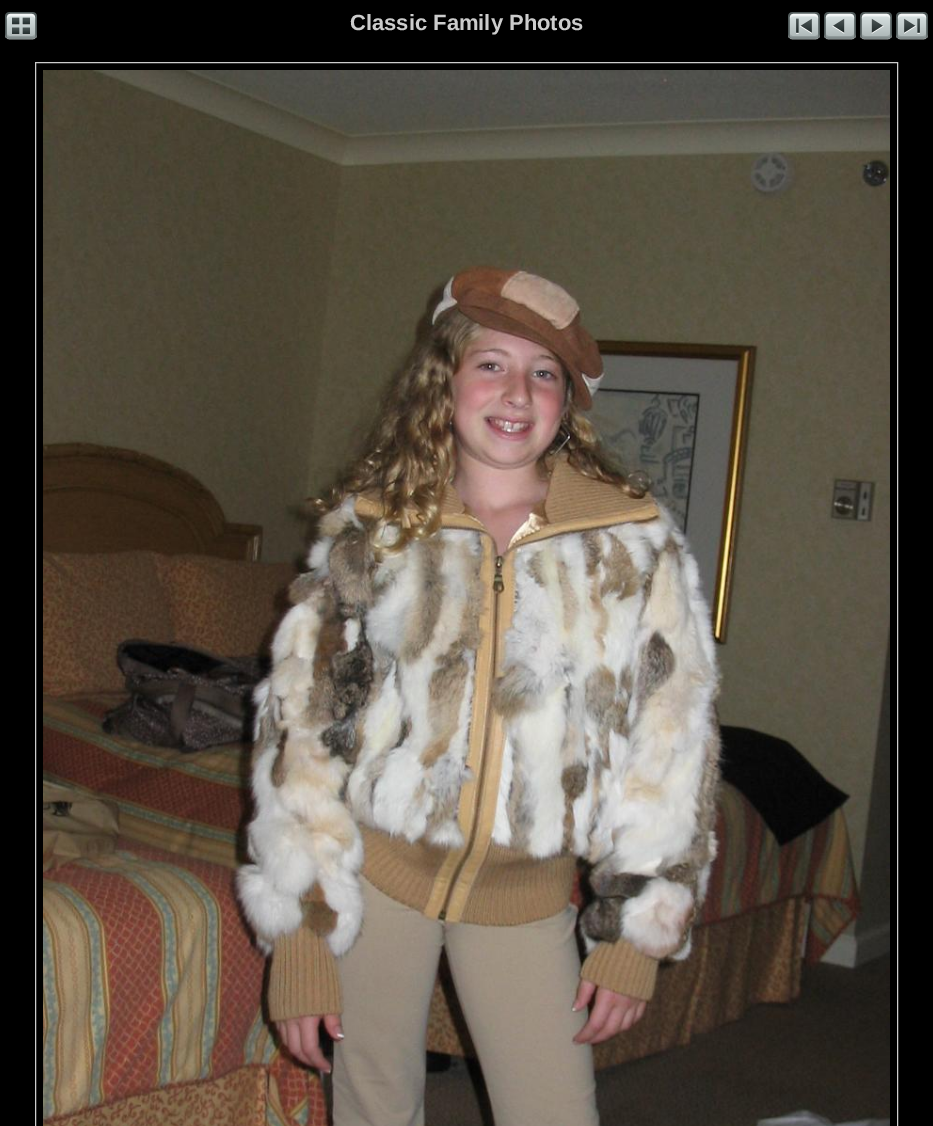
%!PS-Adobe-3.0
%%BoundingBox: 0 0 933 1126
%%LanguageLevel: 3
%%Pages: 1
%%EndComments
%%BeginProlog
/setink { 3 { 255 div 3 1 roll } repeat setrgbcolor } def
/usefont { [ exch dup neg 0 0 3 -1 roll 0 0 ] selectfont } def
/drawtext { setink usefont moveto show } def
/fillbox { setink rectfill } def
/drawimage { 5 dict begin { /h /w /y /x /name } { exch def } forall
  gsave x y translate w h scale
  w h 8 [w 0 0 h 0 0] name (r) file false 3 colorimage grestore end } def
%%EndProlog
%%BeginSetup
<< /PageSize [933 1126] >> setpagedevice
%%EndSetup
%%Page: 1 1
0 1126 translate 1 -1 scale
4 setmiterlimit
0 0 933 1126 0 0 0 fillbox
(assets/img1.rgb) 5 12 32 28 drawimage
(Classic Family Photos) 350 30 /LiberationSans-Bold 22 204 204 204 drawtext
(assets/img2.rgb) 788 12 32 28 drawimage
(assets/img3.rgb) 824 12 32 28 drawimage
(assets/img4.rgb) 860 12 32 28 drawimage
(assets/img5.rgb) 896 12 32 28 drawimage
35.5 62.5 862 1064 rectstroke
(assets/img6.rgb) 43 70 847 1056 drawimage
showpage
%%EOF
